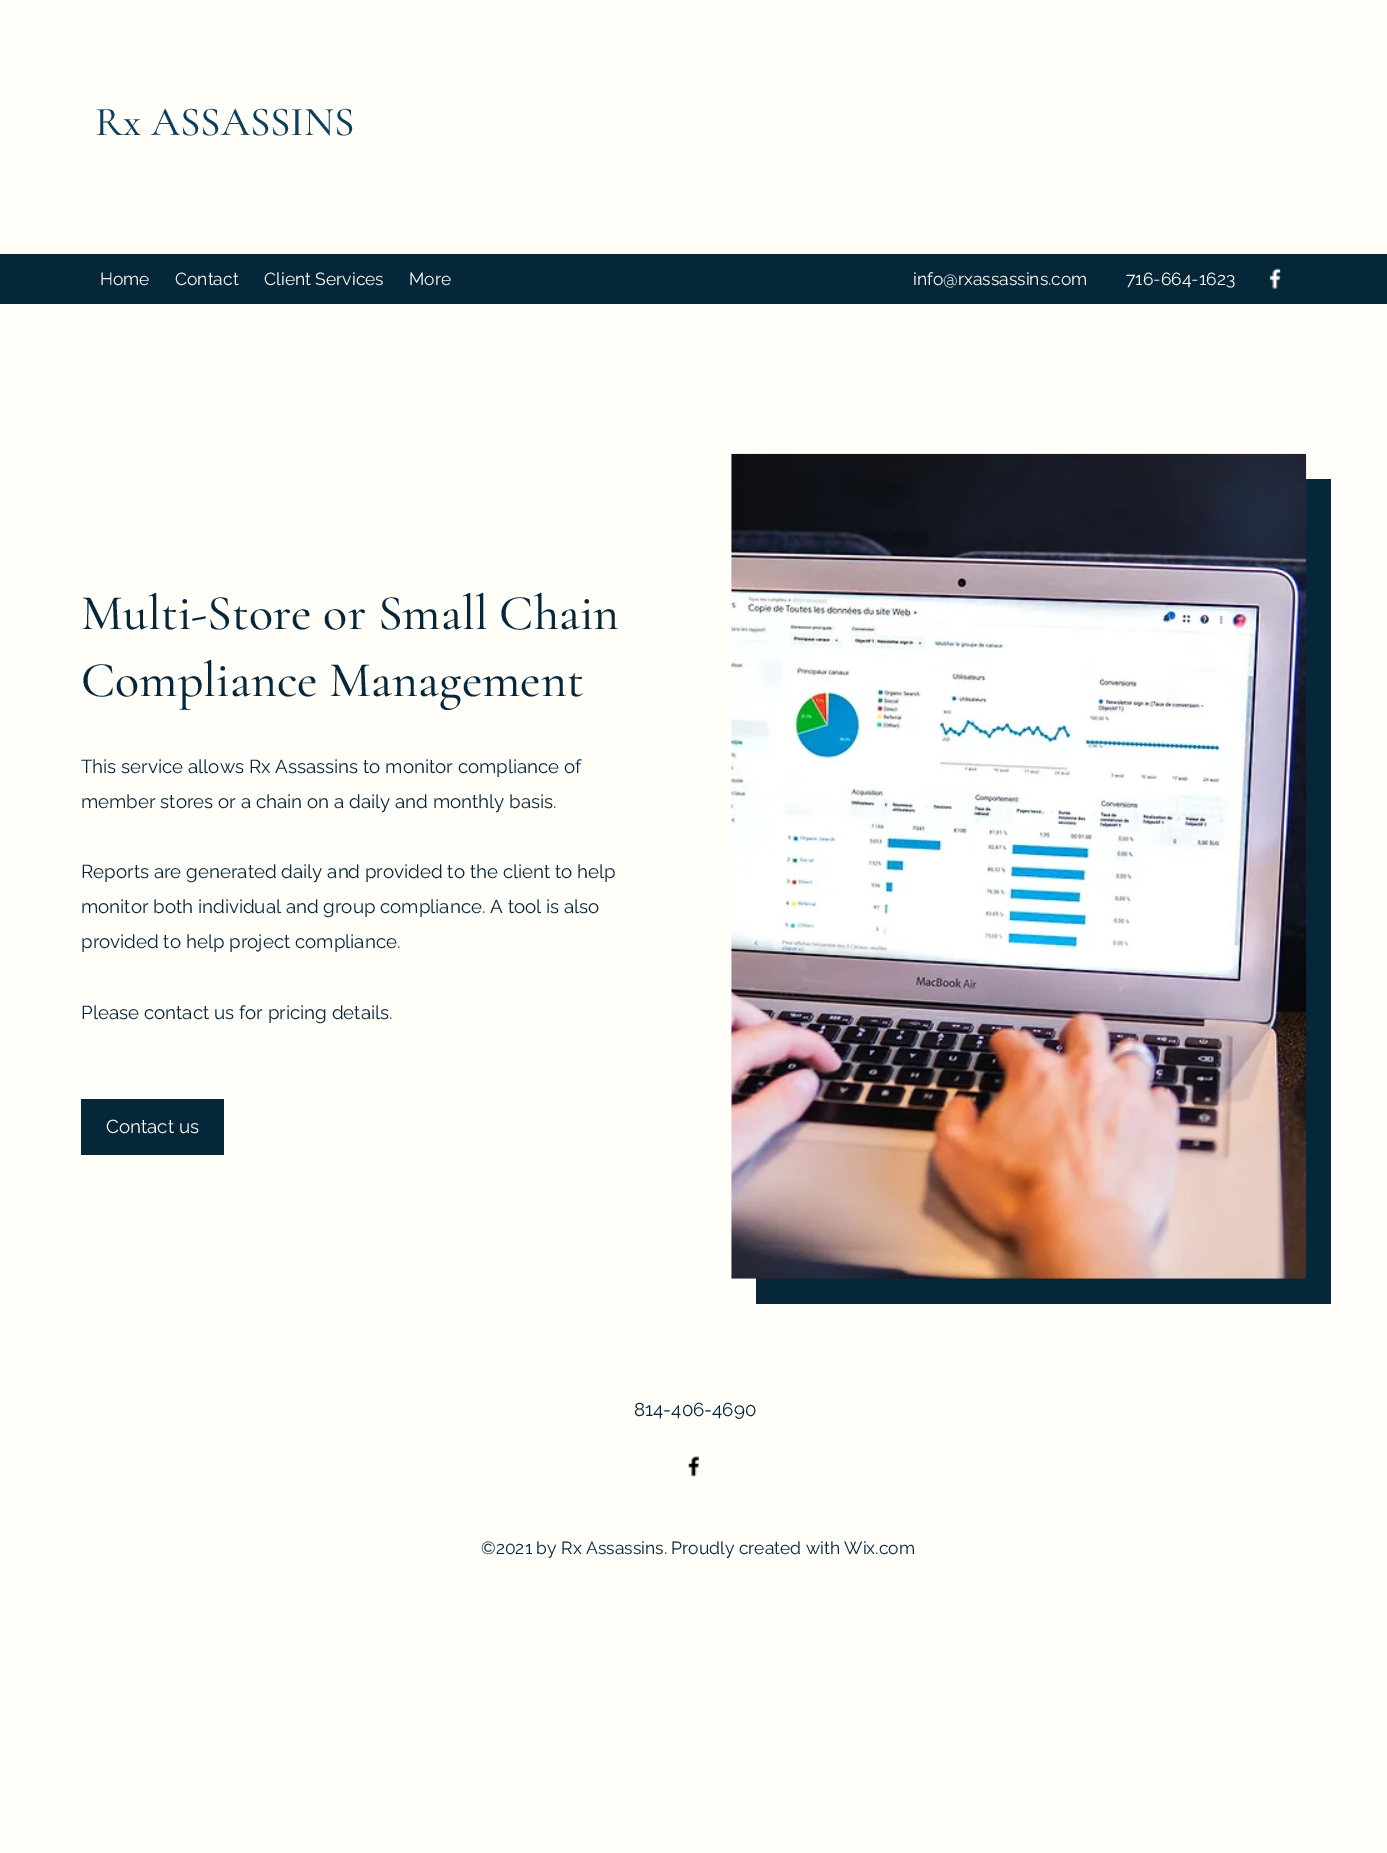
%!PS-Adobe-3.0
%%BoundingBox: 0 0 1387 1853
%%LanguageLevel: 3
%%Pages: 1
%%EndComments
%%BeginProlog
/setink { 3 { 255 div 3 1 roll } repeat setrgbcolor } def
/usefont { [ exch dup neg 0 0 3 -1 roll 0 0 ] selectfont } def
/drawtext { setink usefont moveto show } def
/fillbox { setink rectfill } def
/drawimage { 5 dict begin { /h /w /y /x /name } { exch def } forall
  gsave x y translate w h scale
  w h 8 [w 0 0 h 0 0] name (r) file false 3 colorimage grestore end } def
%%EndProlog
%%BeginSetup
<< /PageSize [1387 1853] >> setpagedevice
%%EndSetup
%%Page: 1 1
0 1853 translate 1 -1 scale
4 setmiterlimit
0 0 1387 1853 255 254 248 fillbox
(Rx ASSASSINS) 95 135 /CormorantGaramond-Medium 41.25 10 62 92 drawtext
0 254 1387 50 6 39 58 fillbox
(Home) 100 285 /Raleway-Regular 17.5 255 254 248 drawtext
(Contact) 175 285 /Raleway-Regular 17.5 255 254 248 drawtext
(Client Services) 264 285 /Raleway-Regular 17.5 255 254 248 drawtext
(More) 409 285 /Raleway-Regular 17.5 255 254 248 drawtext
(info@rxassassins.com) 913 285 /Raleway-Regular 17.5 255 254 248 drawtext
(716-664-1623) 1126 285 /Raleway-Regular 17.5 255 254 248 drawtext
(assets/img1.rgb) 1269 268 12 21 drawimage
(Multi-Store or Small Chain) 81 629 /CormorantGaramond-Medium 50 6 39 58 drawtext
(Compliance Management) 81 696 /CormorantGaramond-Medium 50 6 39 58 drawtext
(This service allows Rx Assassins to monitor compliance of) 81 773 /Raleway-Regular 18.75 6 39 58 drawtext
(member stores or a chain on a daily and monthly basis.) 81 808 /Raleway-Regular 18.75 6 39 58 drawtext
(Reports are generated daily and provided to the client to help) 81 878 /Raleway-Regular 18.75 6 39 58 drawtext
(monitor both individual and group compliance. A tool is also) 81 913 /Raleway-Regular 18.75 6 39 58 drawtext
(provided to help project compliance.) 81 948 /Raleway-Regular 18.75 6 39 58 drawtext
(Please contact us for pricing details.) 81 1019 /Raleway-Regular 18.75 6 39 58 drawtext
81 1099 143 56 6 39 58 fillbox
(Contact us) 106 1133 /Raleway-Regular 18.75 255 254 248 drawtext
756 479 575 825 6 39 58 fillbox
(assets/img2.rgb) 731 453 576 826 drawimage
(814-406-4690) 634 1416 /Raleway-Regular 18.75 6 39 58 drawtext
(assets/img3.rgb) 688 1456 12 21 drawimage
(©2021 by Rx Assassins. Proudly created with Wix.com) 481 1554 /Raleway-Regular 17.5 6 39 58 drawtext
showpage
%%EOF
